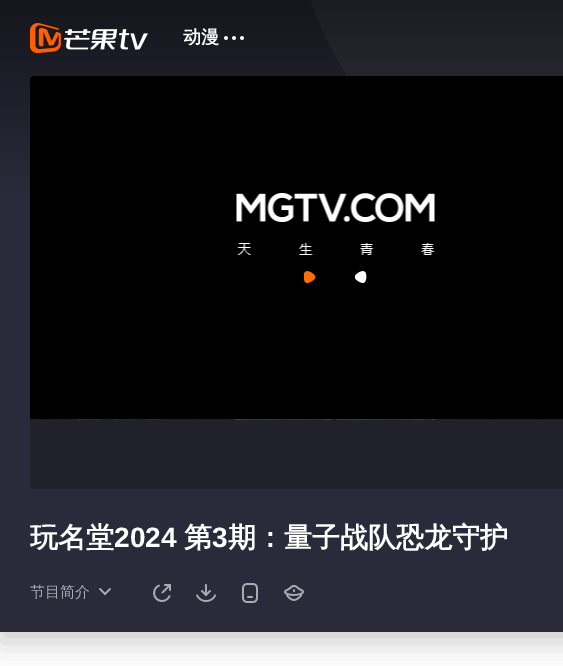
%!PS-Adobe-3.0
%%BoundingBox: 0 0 563 666
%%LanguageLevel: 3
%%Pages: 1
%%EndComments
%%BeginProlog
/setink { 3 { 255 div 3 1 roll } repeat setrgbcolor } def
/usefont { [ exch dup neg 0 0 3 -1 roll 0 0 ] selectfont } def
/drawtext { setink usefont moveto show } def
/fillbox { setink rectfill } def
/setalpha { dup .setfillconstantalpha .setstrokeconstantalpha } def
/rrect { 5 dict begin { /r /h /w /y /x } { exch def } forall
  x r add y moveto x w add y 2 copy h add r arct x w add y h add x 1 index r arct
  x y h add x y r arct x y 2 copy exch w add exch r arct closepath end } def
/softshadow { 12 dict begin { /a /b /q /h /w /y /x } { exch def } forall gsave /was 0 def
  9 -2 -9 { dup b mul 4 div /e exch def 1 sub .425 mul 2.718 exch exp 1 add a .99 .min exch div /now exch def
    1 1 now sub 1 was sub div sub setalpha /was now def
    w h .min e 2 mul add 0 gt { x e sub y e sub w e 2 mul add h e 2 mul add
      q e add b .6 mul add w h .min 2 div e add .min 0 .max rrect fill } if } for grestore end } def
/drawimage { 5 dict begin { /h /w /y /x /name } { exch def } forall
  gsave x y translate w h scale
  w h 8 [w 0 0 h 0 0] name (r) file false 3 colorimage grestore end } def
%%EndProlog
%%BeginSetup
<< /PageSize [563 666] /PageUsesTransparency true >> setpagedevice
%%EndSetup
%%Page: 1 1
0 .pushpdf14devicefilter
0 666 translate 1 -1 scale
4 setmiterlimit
0 0 563 666 255 255 255 fillbox
0 0 0 setink
0 10 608 632 0 15 0.2 softshadow
0 0 563 632 42 42 58 fillbox
(assets/img3.rgb) 310 0 253 76 drawimage
0.7 setalpha
29 29 38 setink
30 76 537 413 4 rrect fill
1 setalpha
(assets/img5.rgb) 30 76 533 344 drawimage
(assets/img4.rgb) 0 0 563 191 drawimage
(assets/img1.rgb) 30 23 118 30 drawimage
(动漫) 183 43 /WenQuanYiZenHei-Bold 18 255 255 255 drawtext
(assets/img2.rgb) 224 36 20 4 drawimage
0 0 0 setink
34 76 moveto 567 76 lineto 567 419 lineto 30 419 lineto 30 80 lineto 30 78 32 76 34 76 curveto closepath fill
(assets/img6.rgb) 236 193 199 62 drawimage
(assets/img7.rgb) 304 271 12 12 drawimage
(assets/img8.rgb) 355 271 12 12 drawimage
(玩名堂) 30 547 /WenQuanYiZenHei-Bold 28 255 255 255 drawtext
(2024) 114 547 /LiberationSans-Bold 28 255 255 255 drawtext
(第) 184 547 /WenQuanYiZenHei-Bold 28 255 255 255 drawtext
(3) 212 547 /LiberationSans-Bold 28 255 255 255 drawtext
(期：量子战队恐龙守护) 228 547 /WenQuanYiZenHei-Bold 28 255 255 255 drawtext
(节目简介) 30 597 /WenQuanYiZenHei-Medium 15 170 170 176 drawtext
(assets/img9.rgb) 99 588 12 7 drawimage
(assets/img10.rgb) 153 584 18 18 drawimage
(assets/img11.rgb) 196 584 20 18 drawimage
(assets/img12.rgb) 242 583 16 20 drawimage
(assets/img13.rgb) 284 584 20 17 drawimage
.poppdf14devicefilter showpage
%%EOF
